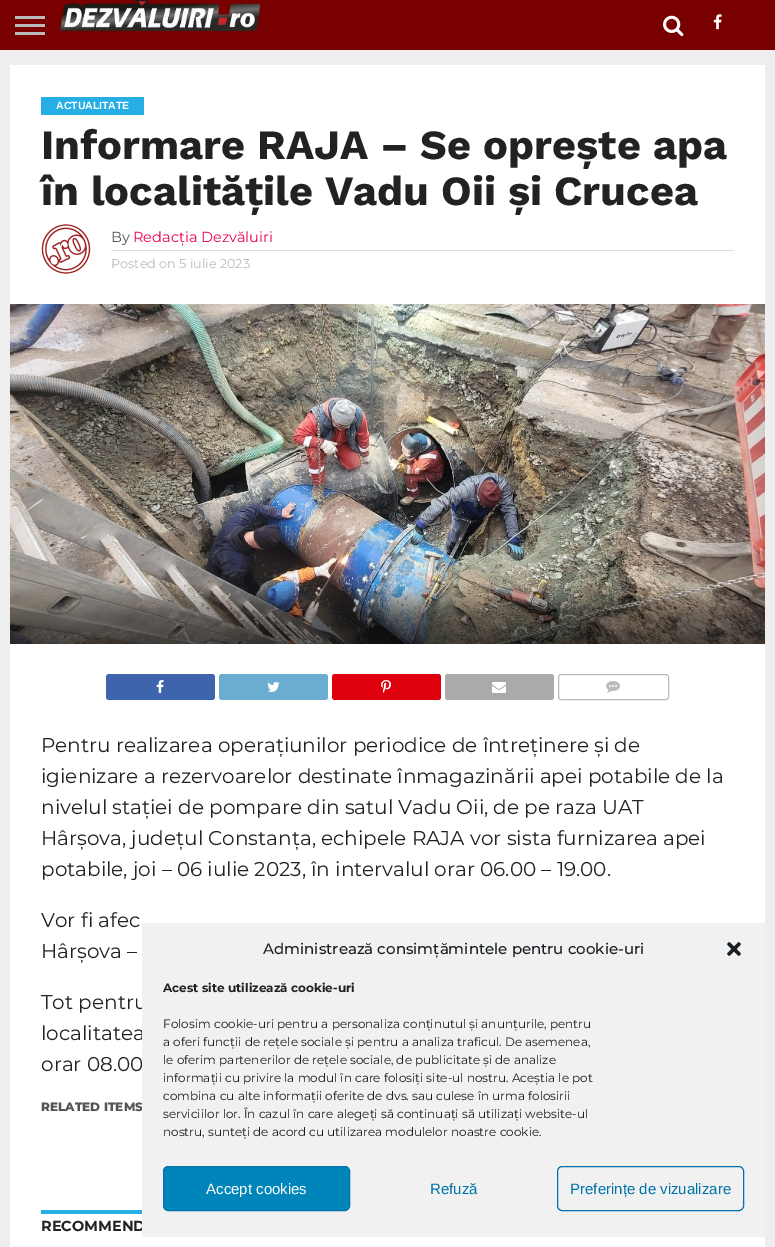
%!PS-Adobe-3.0
%%BoundingBox: 0 0 775 1247
%%LanguageLevel: 3
%%Pages: 1
%%EndComments
%%BeginProlog
/setink { 3 { 255 div 3 1 roll } repeat setrgbcolor } def
/usefont { [ exch dup neg 0 0 3 -1 roll 0 0 ] selectfont } def
/drawtext { setink usefont moveto show } def
/fillbox { setink rectfill } def
/rrect { 5 dict begin { /r /h /w /y /x } { exch def } forall
  x r add y moveto x w add y 2 copy h add r arct x w add y h add x 1 index r arct
  x y h add x y r arct x y 2 copy exch w add exch r arct closepath end } def
/drawimage { 5 dict begin { /h /w /y /x /name } { exch def } forall
  gsave x y translate w h scale
  w h 8 [w 0 0 h 0 0] name (r) file false 3 colorimage grestore end } def
%%EndProlog
%%BeginSetup
<< /PageSize [775 1247] >> setpagedevice
%%EndSetup
%%Page: 1 1
0 1247 translate 1 -1 scale
4 setmiterlimit
0 0 775 1247 238 238 238 fillbox
0 0 775 50 121 0 1 fillbox
15 16 30 3 187 187 187 fillbox
15 24 30 3 187 187 187 fillbox
15 32 30 3 187 187 187 fillbox
(assets/img1.rgb) 60 0 200 31 drawimage
(assets/img2.rgb) 663 15 21 22 drawimage
(assets/img3.rgb) 713 14 9 16 drawimage
10 65 755 1182 255 255 255 fillbox
41 97 103 18 37 175 229 fillbox
(ACTUALITATE) 56 109 /LiberationSans-Bold 10.5 255 255 255 drawtext
(Informare RAJA – Se oprește apa) 41 159 /WorkSans-Bold 41.6 34 34 34 drawtext
(în localitățile Vadu Oii și Crucea) 41 205 /WorkSans-Bold 41.6 34 34 34 drawtext
(assets/img4.rgb) 41 224 50 50 drawimage
111 250 623 1 221 221 221 fillbox
(By) 111 242 /Montserrat-Regular 14.5 85 85 85 drawtext
(Redacția Dezvăluiri) 133 242 /Montserrat-Regular 14.5 235 2 84 drawtext
(Posted on 5 iulie 2023) 111 268 /Montserrat-Regular 12.75 187 187 187 drawtext
(assets/img5.rgb) 10 304 755 340 drawimage
62 100 173 setink
106 674 109 26 3 rrect fill
(assets/img6.rgb) 156 680 8 13 drawimage
106 173 209 setink
219 674 109 26 3 rrect fill
(assets/img7.rgb) 267 682 13 10 drawimage
222 1 13 setink
332 674 109 26 3 rrect fill
(assets/img8.rgb) 381 680 10 13 drawimage
170 170 170 setink
445 674 109 26 3 rrect fill
(assets/img9.rgb) 492 682 14 11 drawimage
187 187 187 setink
558.5 674.5 110 25 2.5 rrect stroke
(assets/img10.rgb) 606 681 14 12 drawimage
(Pentru realizarea operațiunilor periodice de întreținere și de) 41 752 /Montserrat-Regular 20 34 34 34 drawtext
(igienizare a rezervoarelor destinate înmagazinării apei potabile de la) 41 783 /Montserrat-Regular 20 34 34 34 drawtext
(nivelul stației de pompare din satul Vadu Oii, de pe raza UAT) 41 814 /Montserrat-Regular 20 34 34 34 drawtext
(Hârșova, județul Constanța, echipele RAJA vor sista furnizarea apei) 41 845 /Montserrat-Regular 20 34 34 34 drawtext
(potabile, joi – 06 iulie 2023, în intervalul orar 06.00 – 19.00.) 41 876 /Montserrat-Regular 20 34 34 34 drawtext
(Vor fi afec) 41 927 /Montserrat-Regular 20 34 34 34 drawtext
(Hârșova –) 41 958 /Montserrat-Regular 20 34 34 34 drawtext
(Tot pentru) 41 1009 /Montserrat-Regular 20 34 34 34 drawtext
(localitatea) 41 1040 /Montserrat-Regular 20 34 34 34 drawtext
(orar 08.00) 41 1071 /Montserrat-Regular 20 34 34 34 drawtext
(RELATED ITEMS) 41 1111 /Montserrat-ExtraBold 12 85 85 85 drawtext
41 1210 101 4 37 175 229 fillbox
(RECOMMEND) 41 1231 /Montserrat-Bold 14.5 34 34 34 drawtext
142 923 623 314 241 241 241 fillbox
(Administrează consimțămintele pentru cookie-uri) 263 954 /Montserrat-Medium 15 25 30 35 drawtext
(assets/img11.rgb) 727 942 14 14 drawimage
(Acest site utilizează cookie-uri) 163 992 /Montserrat-Bold 12 34 34 34 drawtext
(Folosim cookie-uri pentru a personaliza conținutul și anunțurile, pentru) 163 1028 /Montserrat-Regular 12 25 30 35 drawtext
(a oferi funcții de rețele sociale și pentru a analiza traficul. De asemenea,) 163 1046 /Montserrat-Regular 12 25 30 35 drawtext
(le oferim partenerilor de rețele sociale, de publicitate și de analize) 163 1064 /Montserrat-Regular 12 25 30 35 drawtext
(informații cu privire la modul în care folosiți site-ul nostru. Aceștia le pot) 163 1082 /Montserrat-Regular 12 25 30 35 drawtext
(combina cu alte informații oferite de dvs. sau culese în urma folosirii) 163 1100 /Montserrat-Regular 12 25 30 35 drawtext
(serviciilor lor. În cazul în care alegeți să continuați să utilizați website-ul) 163 1118 /Montserrat-Regular 12 25 30 35 drawtext
(nostru, sunteți de acord cu utilizarea modulelor noastre cookie.) 163 1136 /Montserrat-Regular 12 25 30 35 drawtext
0 133 186 setink
163.5 1166.5 186 44 4.5 rrect gsave fill grestore
0 115 170 setink
stroke
(Accept cookies) 206 1194 /LiberationSans-Regular 15 255 255 255 drawtext
(Refuză) 430 1194 /LiberationSans-Regular 15 0 115 170 drawtext
557.5 1166.5 186 44 4.5 rrect stroke
(Preferințe de vizualizare) 570 1194 /LiberationSans-Regular 15 0 115 170 drawtext
showpage
%%EOF
